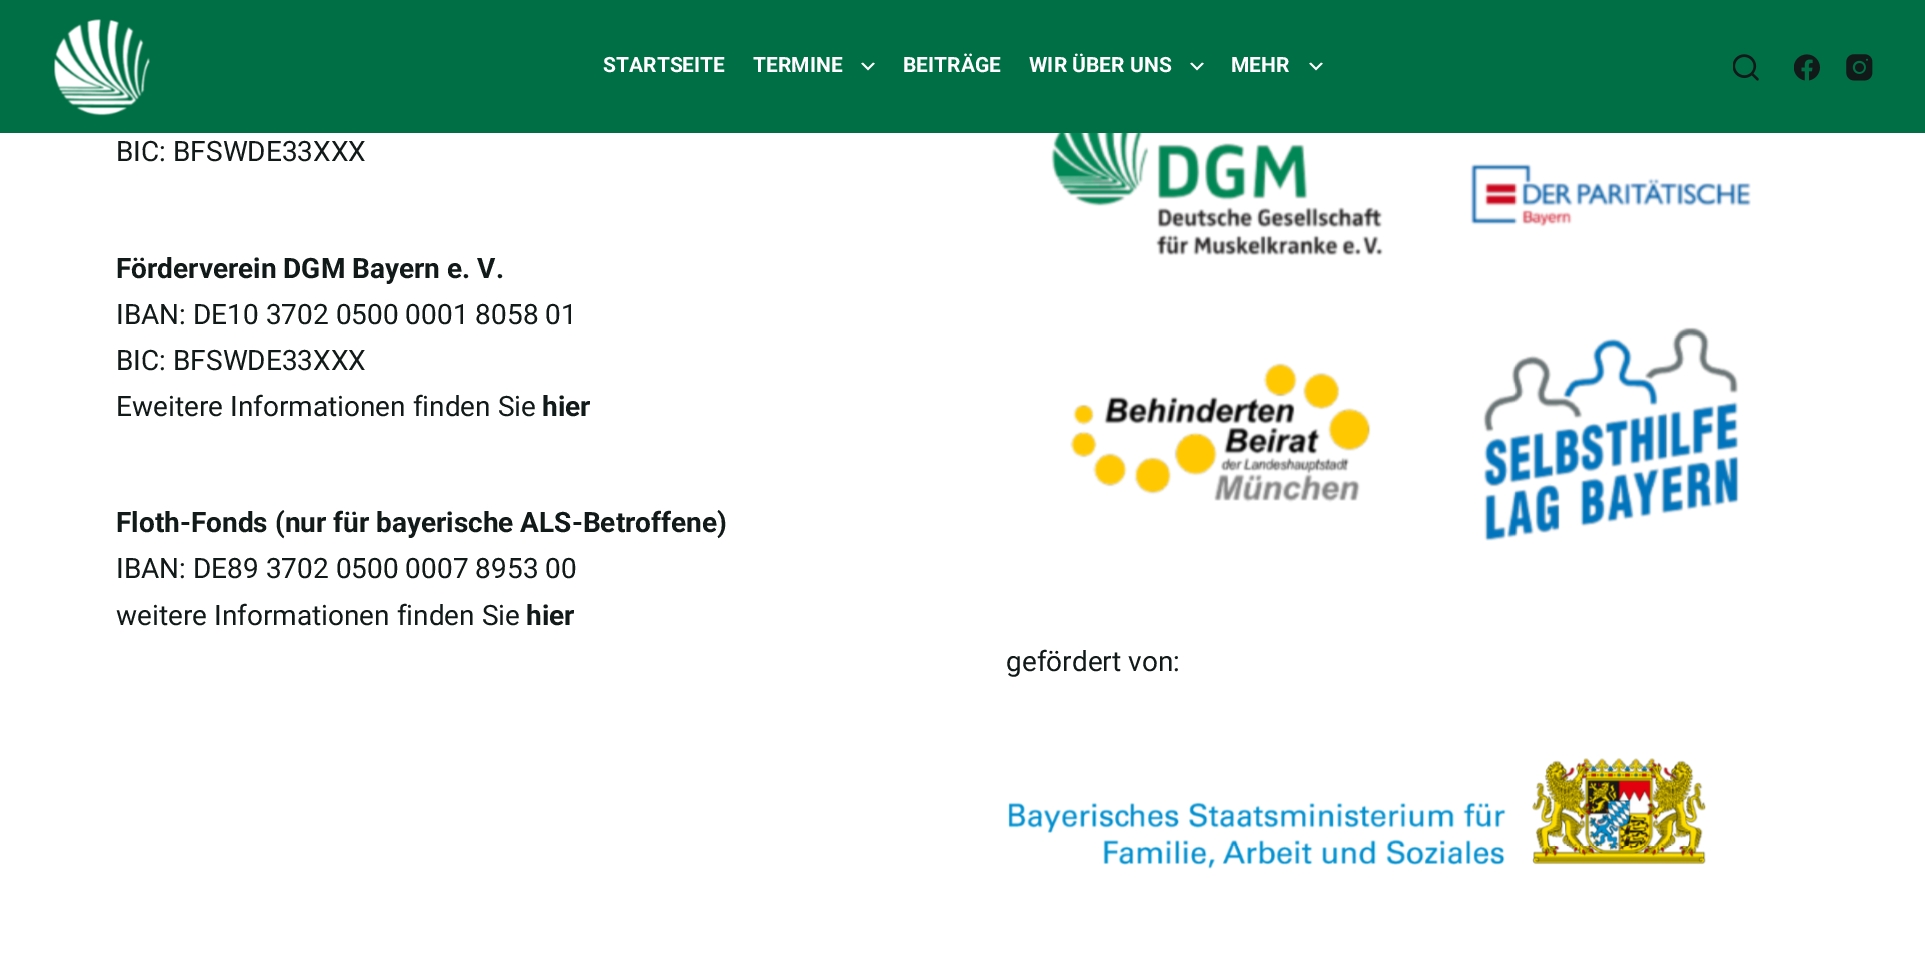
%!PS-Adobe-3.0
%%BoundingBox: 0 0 1925 956
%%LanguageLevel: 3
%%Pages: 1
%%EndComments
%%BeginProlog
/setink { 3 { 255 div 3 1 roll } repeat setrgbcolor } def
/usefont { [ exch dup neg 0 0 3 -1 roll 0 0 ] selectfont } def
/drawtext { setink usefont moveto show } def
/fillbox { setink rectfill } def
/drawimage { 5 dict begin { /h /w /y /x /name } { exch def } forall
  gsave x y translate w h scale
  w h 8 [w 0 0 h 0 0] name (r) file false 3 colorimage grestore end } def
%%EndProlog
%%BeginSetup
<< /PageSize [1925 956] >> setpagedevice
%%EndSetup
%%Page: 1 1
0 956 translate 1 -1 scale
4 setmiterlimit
0 0 1925 956 255 255 255 fillbox
0 0 1925 133 0 111 69 fillbox
(assets/img1.rgb) 54 19 96 97 drawimage
(STARTSEITE) 603 72 /Roboto-Bold 21 255 255 255 drawtext
(TERMINE) 753 72 /Roboto-Bold 21 255 255 255 drawtext
(assets/img2.rgb) 861 62 14 9 drawimage
(BEITRÄGE) 903 72 /Roboto-Bold 21 255 255 255 drawtext
(WIR ÜBER UNS) 1029 72 /Roboto-Bold 21 255 255 255 drawtext
(assets/img2.rgb) 1190 62 14 9 drawimage
(MEHR) 1231 72 /Roboto-Bold 21 255 255 255 drawtext
(assets/img2.rgb) 1309 62 14 9 drawimage
(assets/img3.rgb) 1733 54 26 27 drawimage
(assets/img4.rgb) 1794 54 26 27 drawimage
(assets/img5.rgb) 1846 54 27 27 drawimage
(BIC: BFSWDE33XXX) 116 161 /Roboto-Regular 28 17 26 24 drawtext
(Förderverein DGM Bayern e. V.) 116 278 /Roboto-Bold 28 17 26 24 drawtext
(IBAN: DE10 3702 0500 0001 8058 01) 116 324 /Roboto-Regular 28 17 26 24 drawtext
(BIC: BFSWDE33XXX) 116 370 /Roboto-Regular 28 17 26 24 drawtext
(Eweitere Informationen finden Sie) 116 416 /Roboto-Regular 28 17 26 24 drawtext
(hier) 542 416 /Roboto-Bold 28 17 26 24 drawtext
(Floth-Fonds \(nur für bayerische ALS-Betroffene\)) 116 532 /Roboto-Bold 28 17 26 24 drawtext
(IBAN: DE89 3702 0500 0007 8953 00) 116 578 /Roboto-Regular 28 17 26 24 drawtext
(weitere Informationen finden Sie) 116 625 /Roboto-Regular 28 17 26 24 drawtext
(hier) 526 625 /Roboto-Bold 28 17 26 24 drawtext
(assets/img6.rgb) 1051 133 700 408 drawimage
(gefördert von:) 1006 671 /Roboto-Regular 28 17 26 24 drawtext
(assets/img7.rgb) 1008 758 698 111 drawimage
showpage
%%EOF
